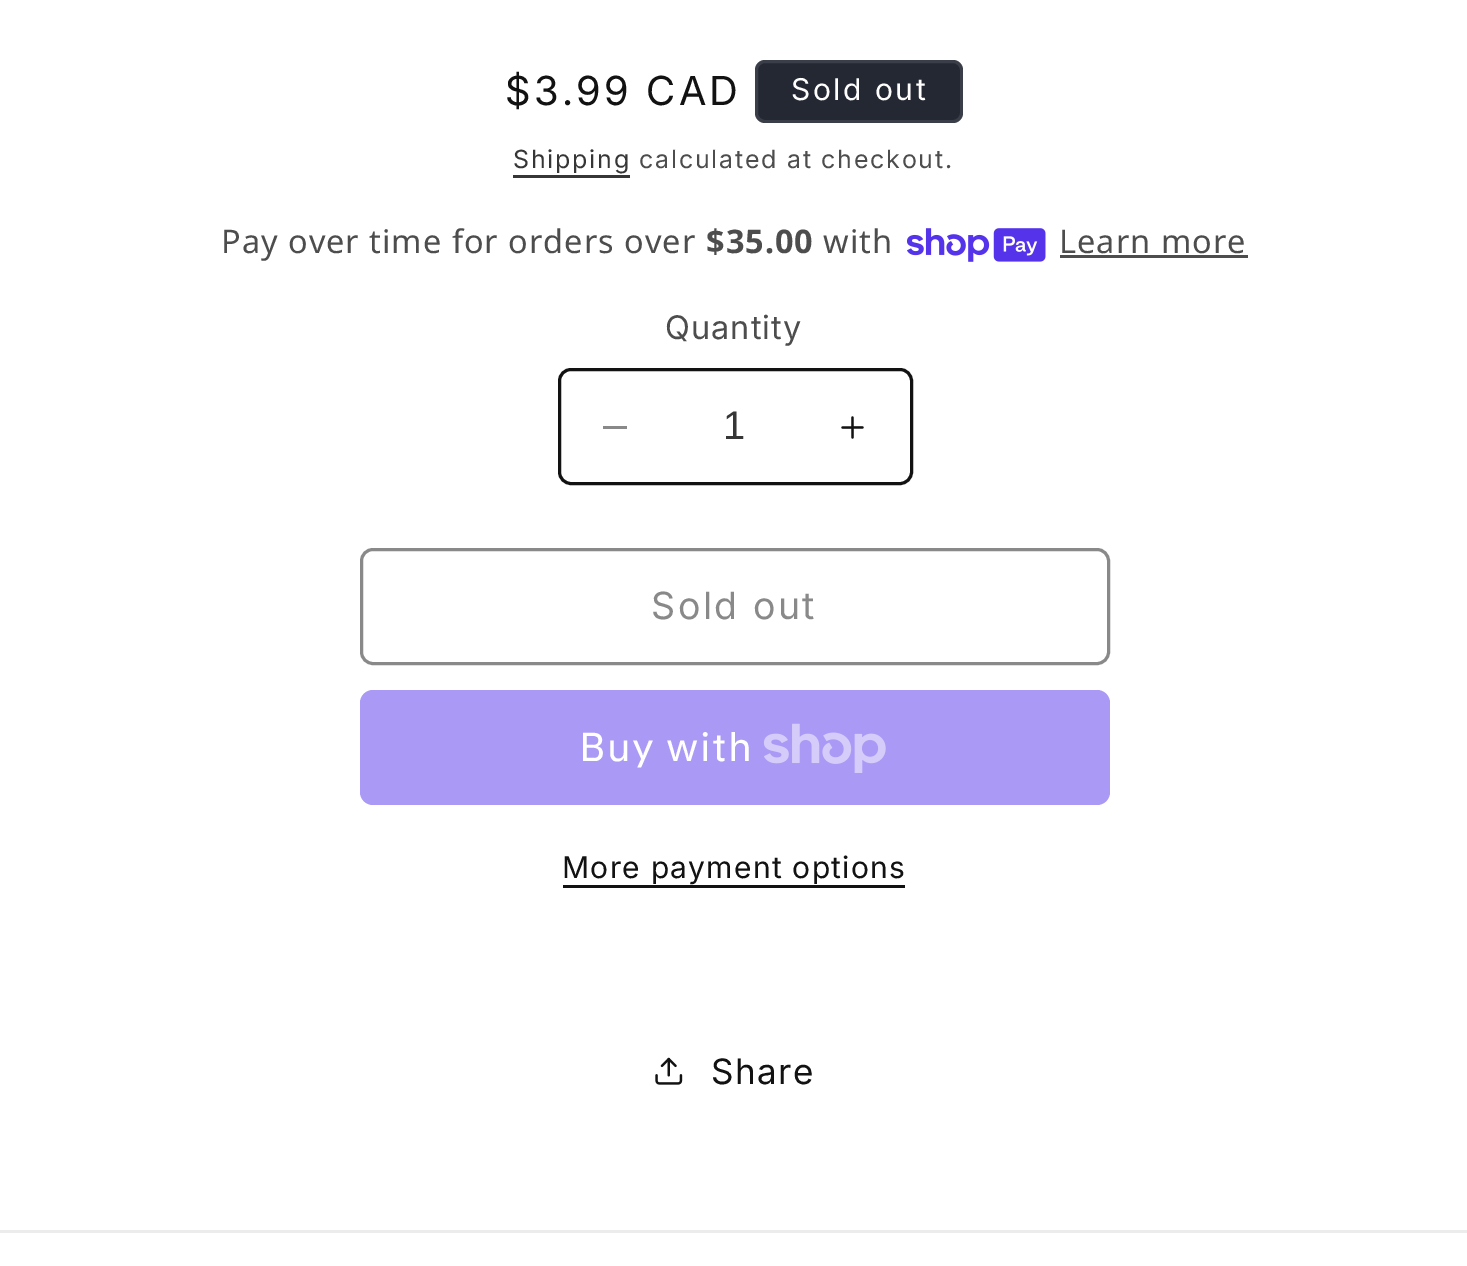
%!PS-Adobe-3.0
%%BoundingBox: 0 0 1467 1266
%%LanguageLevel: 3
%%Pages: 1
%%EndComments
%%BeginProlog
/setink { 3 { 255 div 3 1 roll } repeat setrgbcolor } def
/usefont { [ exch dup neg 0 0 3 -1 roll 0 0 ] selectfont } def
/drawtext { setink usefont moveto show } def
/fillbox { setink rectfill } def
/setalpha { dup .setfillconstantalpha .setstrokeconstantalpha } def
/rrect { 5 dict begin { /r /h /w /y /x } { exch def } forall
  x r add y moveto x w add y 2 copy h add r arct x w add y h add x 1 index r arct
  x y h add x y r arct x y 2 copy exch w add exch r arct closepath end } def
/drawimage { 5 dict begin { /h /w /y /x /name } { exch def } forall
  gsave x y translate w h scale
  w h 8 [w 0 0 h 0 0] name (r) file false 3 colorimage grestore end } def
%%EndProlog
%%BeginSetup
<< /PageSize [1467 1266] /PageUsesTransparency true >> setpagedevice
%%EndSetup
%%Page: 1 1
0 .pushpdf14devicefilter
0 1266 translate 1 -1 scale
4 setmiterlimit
0 0 1467 1266 255 255 255 fillbox
/Inter-Regular 40 usefont
18 18 18 setink
505 105 moveto 3.25 0 ($3.99 CAD) ashow
36 40 51 setink
755 60 208 63 10 rrect fill
0.1 setalpha
255 255 255 setink
3 setlinewidth
756.5 61.5 205 60 8.5 rrect stroke
/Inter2-Regular 30 usefont
1 setalpha
791 100 moveto 2.5 0 (Sold out) ashow
/Inter2-Regular 25 usefont
54 54 54 setink
513 168 moveto 1.75 0 (Shipping) ashow
513 175 117 3 54 54 54 fillbox
77 77 77 setink
639 168 moveto 1.75 0 (calculated at checkout.) ashow
/NotoSans-Regular 32.5 usefont
221 253 moveto 1 0 (Pay over time for orders over) ashow
/NotoSans-Bold 32.5 usefont
706 253 moveto 1 0 ($35.00) ashow
/NotoSans-Regular 32.5 usefont
823 253 moveto 1 0 (with) ashow
(assets/img1.rgb) 907 228 139 34 drawimage
1059 253 moveto 1 0 (Learn more) ashow
1060 255 188 3 77 77 77 fillbox
/Inter2-Regular 32.5 usefont
665 339 moveto 1 0 (Quantity) ashow
603 426 24 3 137 137 137 fillbox
(assets/img2.rgb) 841 416 23 23 drawimage
18 18 18 setink
559.5 369.5 352 114 11.5 rrect stroke
(1) 723 439 /LiberationSans-Regular 40 54 54 54 drawtext
137 137 137 setink
361.5 549.5 747 114 11.5 rrect stroke
/Inter2-Regular 37.5 usefont
651 619 moveto 2.5 0 (Sold out) ashow
170 153 245 setink
360 690 750 115 13 rrect fill
/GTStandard-Regular 40 usefont
255 255 255 setink
579 761 moveto 1.5 0 (Buy with) ashow
(assets/img3.rgb) 763 723 123 50 drawimage
/Inter2-Regular 30 usefont
18 18 18 setink
562 878 moveto 1.25 0 (More payment options) ashow
563 885 342 3 18 18 18 fillbox
(assets/img4.rgb) 655 1057 28 28 drawimage
/Inter2-Regular 35 usefont
711 1084 moveto 1.5 0 (Share) ashow
0 1230 1467 3 236 236 236 fillbox
.poppdf14devicefilter showpage
%%EOF
